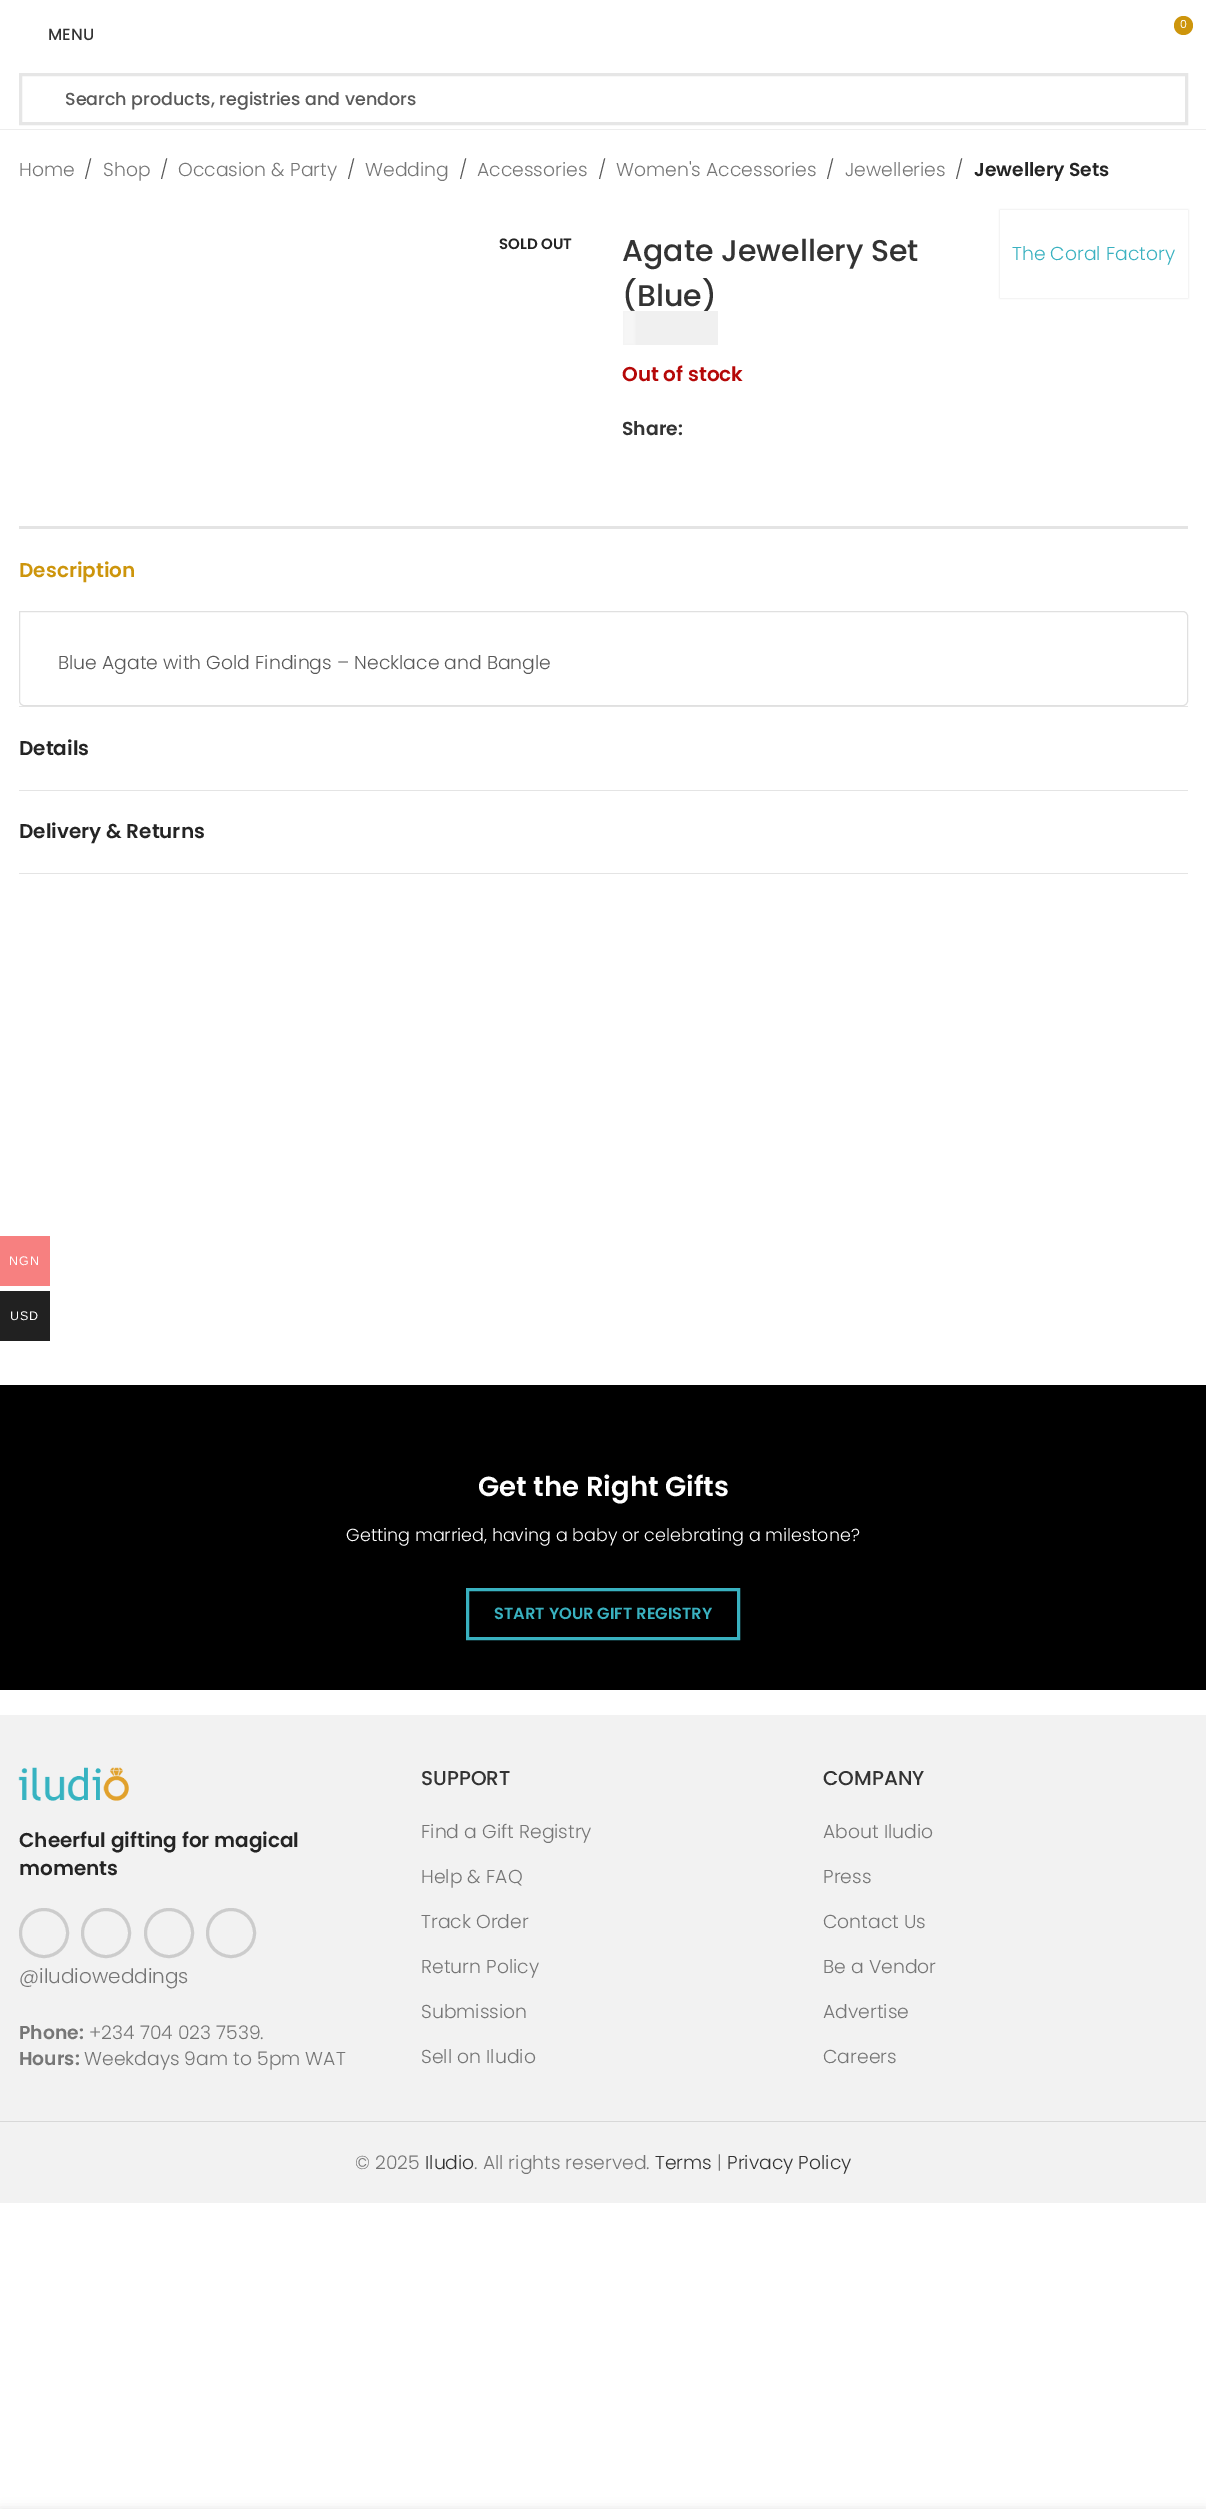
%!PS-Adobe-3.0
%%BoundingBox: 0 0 1206 2509
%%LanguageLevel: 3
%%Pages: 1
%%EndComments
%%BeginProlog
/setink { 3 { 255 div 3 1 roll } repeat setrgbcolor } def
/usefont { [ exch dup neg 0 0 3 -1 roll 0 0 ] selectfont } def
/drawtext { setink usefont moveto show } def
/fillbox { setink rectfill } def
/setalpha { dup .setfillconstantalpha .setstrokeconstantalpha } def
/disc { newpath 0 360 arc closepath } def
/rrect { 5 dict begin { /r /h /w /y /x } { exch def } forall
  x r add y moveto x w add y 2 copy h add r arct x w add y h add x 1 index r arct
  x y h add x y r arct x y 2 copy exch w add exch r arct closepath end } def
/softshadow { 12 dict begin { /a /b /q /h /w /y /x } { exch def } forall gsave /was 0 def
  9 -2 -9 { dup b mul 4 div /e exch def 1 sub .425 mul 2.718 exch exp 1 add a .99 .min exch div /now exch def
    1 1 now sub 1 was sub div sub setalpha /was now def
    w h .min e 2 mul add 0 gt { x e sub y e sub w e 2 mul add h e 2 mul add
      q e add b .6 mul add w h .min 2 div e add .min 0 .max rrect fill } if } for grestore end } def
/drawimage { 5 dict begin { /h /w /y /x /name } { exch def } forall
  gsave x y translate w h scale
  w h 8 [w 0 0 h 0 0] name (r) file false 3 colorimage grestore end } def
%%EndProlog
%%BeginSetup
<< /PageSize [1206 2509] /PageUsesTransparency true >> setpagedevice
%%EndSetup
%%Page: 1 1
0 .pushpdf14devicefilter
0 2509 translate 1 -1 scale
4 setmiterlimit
0 0 1206 2509 255 255 255 fillbox
205 149 12 setink
1183.5 25.5 9.5 disc fill
(0) 1180 28 /Poppins-Regular 11 255 255 255 drawtext
(MENU) 48 40 /Poppins-Medium 16.25 51 51 51 drawtext
0 129 1206 1 237 237 237 fillbox
230 230 230 setink
3 setlinewidth
20.5 74.5 1166 49 rectstroke
(Search products, registries and vendors) 65 105 /Poppins-Medium 17.5 89 89 89 drawtext
(Home) 19 176 /Poppins-Light 18.75 118 118 118 drawtext
(/) 84 176 /Poppins-Light 18.75 89 89 89 drawtext
(Shop) 103 176 /Poppins-Light 18.75 118 118 118 drawtext
(/) 160 176 /Poppins-Light 18.75 89 89 89 drawtext
(Occasion & Party) 178 176 /Poppins-Light 18.75 118 118 118 drawtext
(/) 347 176 /Poppins-Light 18.75 89 89 89 drawtext
(Wedding) 365 176 /Poppins-Light 18.75 118 118 118 drawtext
(/) 459 176 /Poppins-Light 18.75 89 89 89 drawtext
(Accessories) 477 176 /Poppins-Light 18.75 118 118 118 drawtext
(/) 598 176 /Poppins-Light 18.75 89 89 89 drawtext
(Women's Accessories) 616 176 /Poppins-Light 18.75 118 118 118 drawtext
(/) 826 176 /Poppins-Light 18.75 89 89 89 drawtext
(Jewelleries) 845 176 /Poppins-Light 18.75 118 118 118 drawtext
(/) 955 176 /Poppins-Light 18.75 89 89 89 drawtext
(Jewellery Sets) 974 176 /Poppins-SemiBold 18.75 36 36 36 drawtext
(SOLD OUT) 499 249 /Poppins-SemiBold 15 36 36 36 drawtext
(Agate Jewellery Set) 622 261 /Poppins-Medium 30 51 51 51 drawtext
(\(Blue\)) 622 306 /Poppins-Medium 30 51 51 51 drawtext
0 0 0 setink
1000 210 188 88 0 1 0.12 softshadow
1000 210 188 88 255 255 255 fillbox
(The Coral Factory) 1012 260 /Poppins-Light 18.75 57 177 192 drawtext
623 311 95 34 240 240 240 fillbox
254 254 254 setink
623 311 12 34 0 1 0.5 softshadow
(Out of stock) 622 381 /Poppins-SemiBold 20 181 8 8 drawtext
(Share:) 622 435 /Poppins-SemiBold 18.75 51 51 51 drawtext
19 526 1169 3 228 228 228 fillbox
19 706 1169 1 228 228 228 fillbox
(Description) 19 577 /Poppins-SemiBold 20 205 149 12 drawtext
224 224 224 setink
1 setlinewidth
19.5 611.5 moveto 1183 611.5 lineto 1185.5 611.5 1187.5 613.5 1187.5 616 curveto 1187.5 701 lineto 1187.5 703.5 1185.5 705.5 1183 705.5 curveto 24 705.5 lineto 21.5 705.5 19.5 703.5 19.5 701 curveto closepath stroke
(Blue Agate with Gold Findings – Necklace and Bangle) 58 669 /Poppins-Light 18.75 89 89 89 drawtext
19 790 1169 1 228 228 228 fillbox
(Details) 19 755 /Poppins-SemiBold 20 36 36 36 drawtext
19 873 1169 1 228 228 228 fillbox
(Delivery & Returns) 19 838 /Poppins-SemiBold 20 36 36 36 drawtext
0 1385 1206 305 0 0 0 fillbox
(Get the Right Gifts) 478 1496 /Poppins-SemiBold 27.5 255 255 255 drawtext
(Getting married, having a baby or celebrating a milestone?) 346 1541 /Poppins-Light 17.5 255 255 255 drawtext
57 177 192 setink
3 setlinewidth
467.5 1589.5 271 49 rectstroke
(START YOUR GIFT REGISTRY) 494 1619 /Poppins-SemiBold 16.25 57 177 192 drawtext
0 1715 1206 488 242 242 242 fillbox
(assets/img1.rgb) 18 1767 111 34 drawimage
(Cheerful gifting for magical) 19 1847 /Poppins-SemiBold 20 36 36 36 drawtext
(moments) 19 1875 /Poppins-SemiBold 20 36 36 36 drawtext
204 204 204 setink
44 1933 23.5 disc stroke
106 1933 23.5 disc stroke
169 1933 23.5 disc stroke
231 1933 23.5 disc stroke
(@iludioweddings) 19 1983 /Poppins-Light 20 118 118 118 drawtext
(Phone:) 19 2039 /Poppins-SemiBold 18.75 118 118 118 drawtext
(+234 704 023 7539.) 89 2039 /Poppins-Light 18.75 118 118 118 drawtext
(Hours:) 19 2065 /Poppins-SemiBold 18.75 118 118 118 drawtext
(Weekdays 9am to 5pm WAT) 84 2065 /Poppins-Light 18.75 118 118 118 drawtext
(SUPPORT) 421 1785 /Poppins-Medium 20 51 51 51 drawtext
(Find a Gift Registry) 421 1838 /Poppins-Light 18.75 118 118 118 drawtext
(Help & FAQ) 421 1883 /Poppins-Light 18.75 118 118 118 drawtext
(Track Order) 421 1928 /Poppins-Light 18.75 118 118 118 drawtext
(Return Policy) 421 1973 /Poppins-Light 18.75 118 118 118 drawtext
(Submission) 421 2018 /Poppins-Light 18.75 118 118 118 drawtext
(Sell on Iludio) 421 2063 /Poppins-Light 18.75 118 118 118 drawtext
(COMPANY) 823 1785 /Poppins-Medium 20 51 51 51 drawtext
(About Iludio) 823 1838 /Poppins-Light 18.75 118 118 118 drawtext
(Press) 823 1883 /Poppins-Light 18.75 118 118 118 drawtext
(Contact Us) 823 1928 /Poppins-Light 18.75 118 118 118 drawtext
(Be a Vendor) 823 1973 /Poppins-Light 18.75 118 118 118 drawtext
(Advertise) 823 2018 /Poppins-Light 18.75 118 118 118 drawtext
(Careers) 823 2063 /Poppins-Light 18.75 118 118 118 drawtext
0 2121 1206 1 216 216 216 fillbox
(© 2025) 355 2169 /Poppins-Light 18.75 118 118 118 drawtext
(Iludio) 425 2169 /Poppins-Light 18.75 51 51 51 drawtext
(. All rights reserved.) 474 2169 /Poppins-Light 18.75 118 118 118 drawtext
(Terms) 655 2169 /Poppins-Light 18.75 51 51 51 drawtext
(|) 717 2169 /Poppins-Light 18.75 118 118 118 drawtext
(Privacy Policy) 727 2169 /Poppins-Light 18.75 51 51 51 drawtext
0 1236 50 50 247 128 128 fillbox
/LiberationSans-Regular 12.5 usefont
255 255 255 setink
9 1265 moveto 1 0 (NGN) ashow
0 1291 50 50 33 33 33 fillbox
255 255 255 setink
10 1320 moveto 1 0 (USD) ashow
0 0 0 setink
0 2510 1206 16 0 5.5 0.14 softshadow
.poppdf14devicefilter showpage
%%EOF
